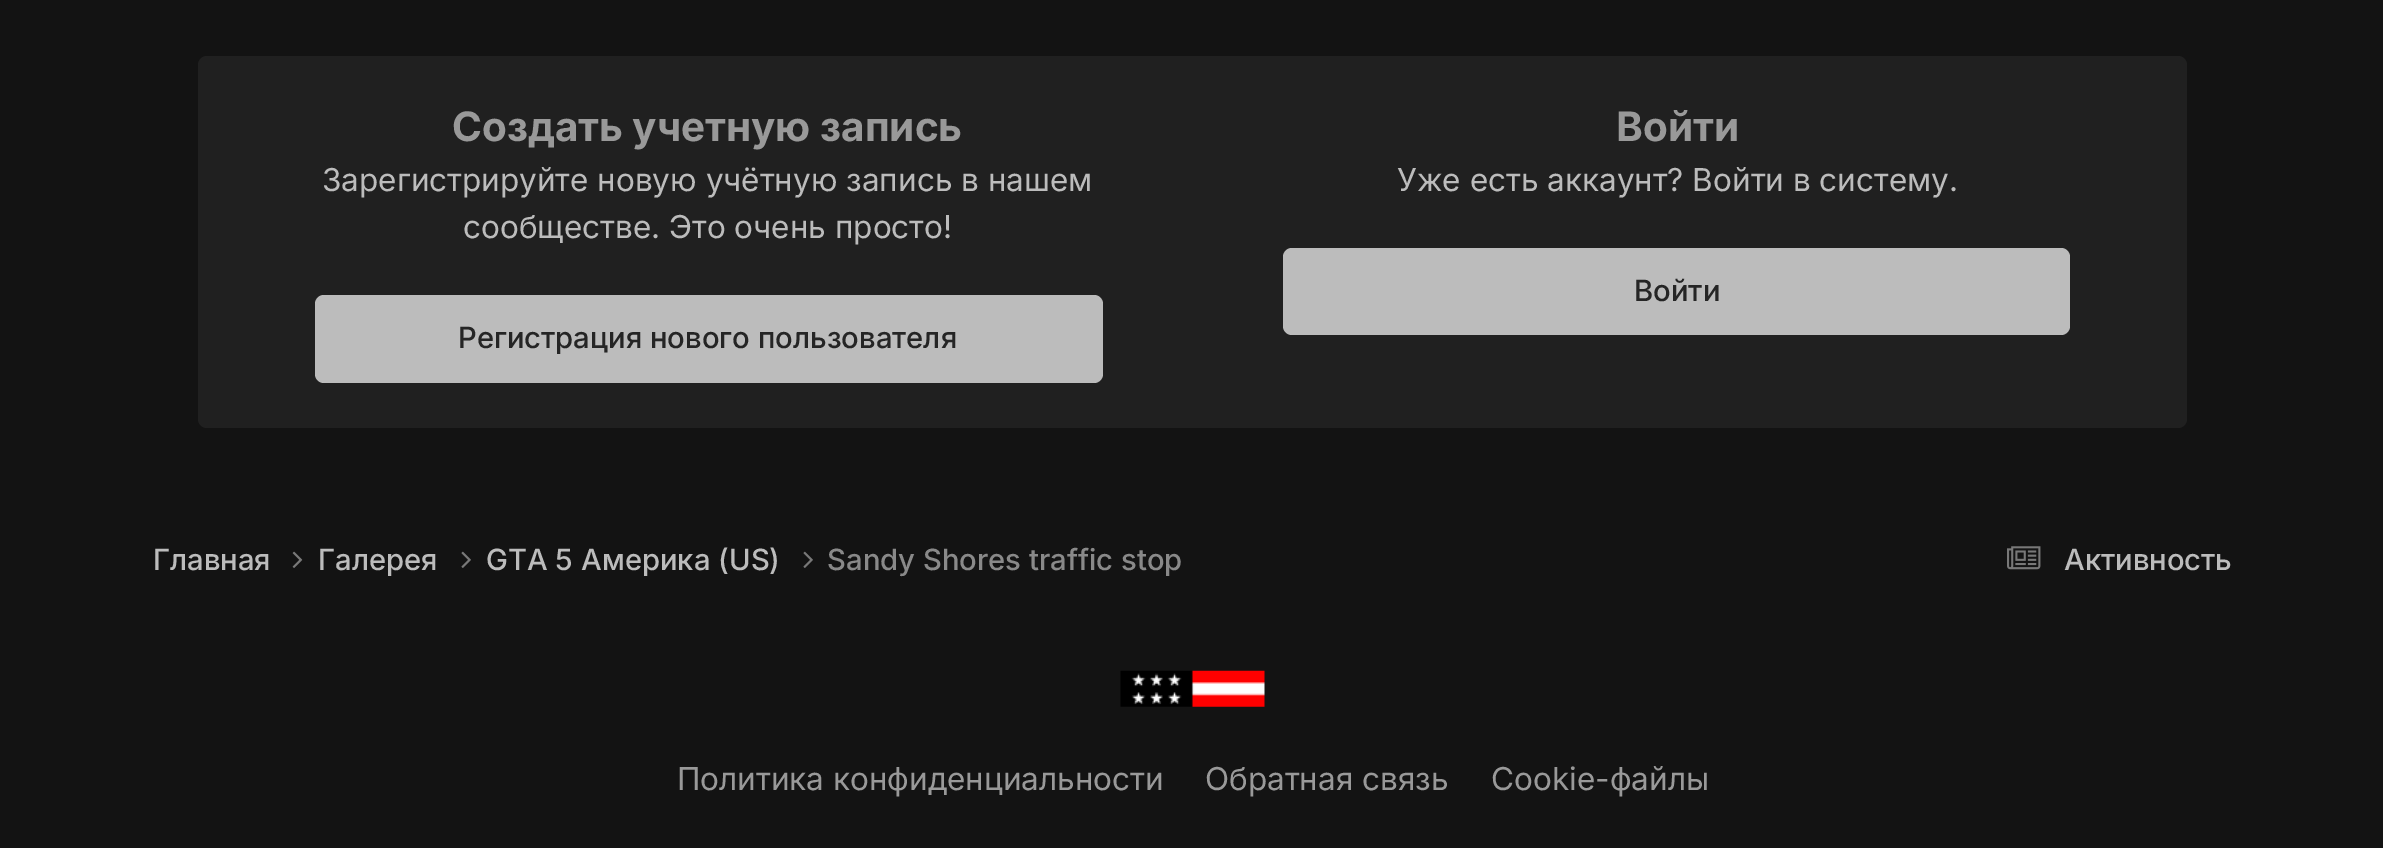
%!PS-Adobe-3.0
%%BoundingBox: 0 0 2383 848
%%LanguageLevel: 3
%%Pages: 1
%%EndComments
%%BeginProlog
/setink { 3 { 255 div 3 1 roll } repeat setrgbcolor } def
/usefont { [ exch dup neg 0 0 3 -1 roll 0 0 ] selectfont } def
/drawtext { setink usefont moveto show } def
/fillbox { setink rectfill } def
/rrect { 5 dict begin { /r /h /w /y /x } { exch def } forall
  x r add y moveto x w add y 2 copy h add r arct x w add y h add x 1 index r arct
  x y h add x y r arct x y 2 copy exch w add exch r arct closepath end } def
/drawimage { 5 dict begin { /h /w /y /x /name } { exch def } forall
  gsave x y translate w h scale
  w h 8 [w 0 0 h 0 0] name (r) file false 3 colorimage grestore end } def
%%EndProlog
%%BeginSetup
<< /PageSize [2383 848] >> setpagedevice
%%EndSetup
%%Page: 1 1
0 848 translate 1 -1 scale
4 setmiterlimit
0 0 2383 848 19 19 19 fillbox
32 32 32 setink
198 56 1989 372 9 rrect fill
(Создать учетную запись) 452 141 /Inter-Bold 40.5 153 153 153 drawtext
(Зарегистрируйте новую учётную запись в нашем) 322 191 /Inter-Regular 31.5 188 188 188 drawtext
(сообществе. Это очень просто!) 463 238 /Inter-Regular 31.5 188 188 188 drawtext
315 295 788 88 9 rrect fill
(Регистрация нового пользователя) 458 348 /Inter-Medium 29.25 37 37 37 drawtext
(Войти) 1616 141 /Inter-Bold 40.5 153 153 153 drawtext
(Уже есть аккаунт? Войти в систему.) 1397 191 /Inter-Regular 31.5 188 188 188 drawtext
1283 248 787 87 9 rrect fill
(Войти) 1634 301 /Inter-Medium 29.25 37 37 37 drawtext
(Главная) 153 570 /Inter-Medium 29.25 188 188 188 drawtext
(assets/img1.rgb) 292 551 11 17 drawimage
(Галерея) 318 570 /Inter-Medium 29.25 188 188 188 drawtext
(assets/img2.rgb) 461 551 10 17 drawimage
(GTA 5 Америка \(US\)) 486 570 /Inter-Medium 29.25 188 188 188 drawtext
(assets/img2.rgb) 803 551 10 17 drawimage
(Sandy Shores traffic stop) 827 570 /Inter-Medium 29.25 137 137 137 drawtext
(assets/img3.rgb) 2007 546 34 24 drawimage
(Активность) 2064 570 /Inter-Medium 29.25 188 188 188 drawtext
(assets/img4.rgb) 1120 670 145 37 drawimage
(Политика конфиденциальности) 677 790 /Inter-Regular 31.5 153 153 153 drawtext
(Обратная связь) 1205 790 /Inter-Regular 31.5 153 153 153 drawtext
(Cookie-файлы) 1491 790 /Inter-Regular 31.5 153 153 153 drawtext
showpage
%%EOF
